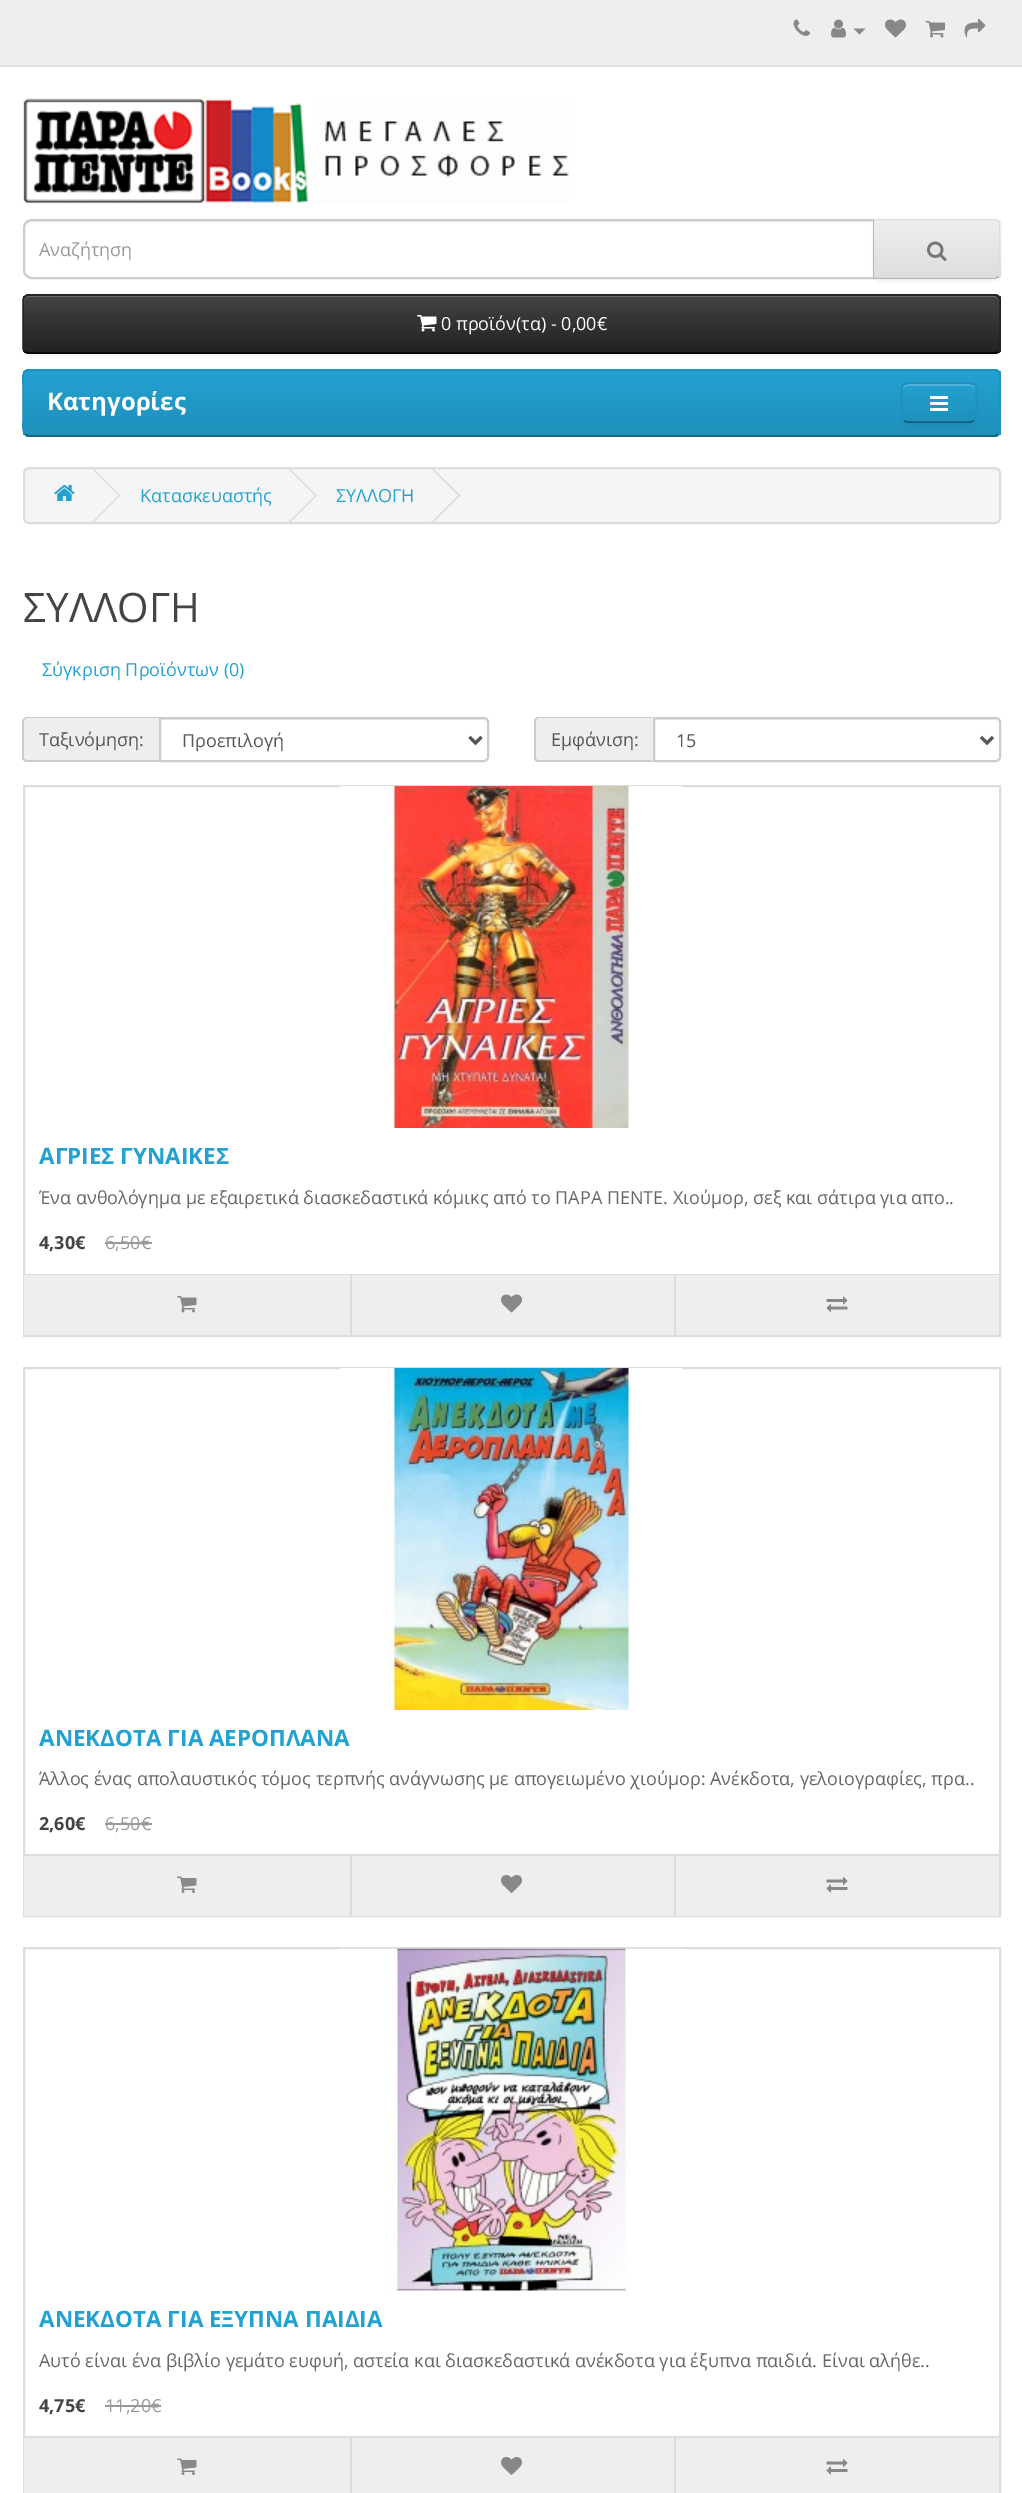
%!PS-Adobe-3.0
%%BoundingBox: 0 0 1022 2493
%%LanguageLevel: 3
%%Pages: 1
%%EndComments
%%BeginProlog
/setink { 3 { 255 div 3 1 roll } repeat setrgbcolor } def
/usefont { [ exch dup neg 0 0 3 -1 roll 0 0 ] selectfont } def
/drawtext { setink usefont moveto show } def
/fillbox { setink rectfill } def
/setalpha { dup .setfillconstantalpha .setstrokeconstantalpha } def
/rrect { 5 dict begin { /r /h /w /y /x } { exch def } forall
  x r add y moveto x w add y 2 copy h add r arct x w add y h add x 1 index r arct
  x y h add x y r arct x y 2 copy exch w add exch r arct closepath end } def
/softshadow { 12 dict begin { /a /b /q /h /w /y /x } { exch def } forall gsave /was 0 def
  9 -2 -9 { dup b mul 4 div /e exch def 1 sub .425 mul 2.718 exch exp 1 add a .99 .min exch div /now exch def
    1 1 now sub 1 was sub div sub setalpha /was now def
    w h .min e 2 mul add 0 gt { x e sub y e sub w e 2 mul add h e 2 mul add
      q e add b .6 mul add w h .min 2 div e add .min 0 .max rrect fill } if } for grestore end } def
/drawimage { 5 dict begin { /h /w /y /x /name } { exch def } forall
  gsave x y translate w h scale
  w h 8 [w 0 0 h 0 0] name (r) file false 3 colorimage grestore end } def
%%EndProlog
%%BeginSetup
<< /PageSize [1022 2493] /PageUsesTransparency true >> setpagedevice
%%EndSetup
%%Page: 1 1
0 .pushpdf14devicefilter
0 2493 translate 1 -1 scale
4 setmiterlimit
0 0 1022 2493 255 255 255 fillbox
0 0 1022 65 238 238 238 fillbox
0 65 1022 2 226 226 226 fillbox
(assets/img1.rgb) 793 19 17 17 drawimage
(assets/img2.rgb) 831 19 15 19 drawimage
136 136 136 setink
853.5 28.5 moveto 865.5 28.5 lineto 859.5 34.5 lineto closepath fill
(assets/img3.rgb) 885 19 21 19 drawimage
(assets/img4.rgb) 925 21 20 17 drawimage
(assets/img5.rgb) 964 18 22 20 drawimage
(assets/img6.rgb) 23 98 546 106 drawimage
236 236 236 setink
32 222 moveto 873 222 lineto 873 221 lineto 32 221 lineto 27 221 24 225 24 230 curveto 24 225 27 222 32 222 curveto closepath fill
204 204 204 setink
2 setlinewidth
32 220 moveto 874 220 lineto 874 278 lineto 32 278 lineto 27.5 278 24 274.5 24 270 curveto 24 228 lineto 24 223.5 27.5 220 32 220 curveto closepath stroke
(Αναζήτηση) 39 256 /OpenSans-Regular 18 153 153 153 drawtext
0 0 0 setink
873 221 128 60 6 1.5 0.05 softshadow
231 231 231 setink
873 219 moveto 995 219 lineto 998.5 219 1001 221.5 1001 225 curveto 1001 273 lineto 1001 276.5 998.5 279 995 279 curveto 873 279 lineto closepath fill
gsave
873 219 moveto 995 219 lineto 998.5 219 1001 221.5 1001 225 curveto 1001 273 lineto 1001 276.5 998.5 279 995 279 curveto 873 279 lineto closepath clip newpath
gsave 874 221 moveto 1001 221 lineto 1001 278 lineto 874 278 lineto closepath clip newpath
<< /ShadingType 2 /ColorSpace /DeviceRGB /Coords [937 221 937 278] /Extend [true true] /Function << /FunctionType 2 /Domain [0 1] /C0 [0.933 0.933 0.933] /C1 [0.867 0.867 0.867] /N 1 >> >> shfill grestore
grestore
241 241 241 setink
875 221 moveto 875 222 lineto 994 222 lineto 997 222 999 224 999 226 curveto 999 223 997 221 994 221 curveto closepath fill
221 221 221 setink
873 219 moveto 874 220 lineto 995 220 lineto 998 222 lineto 999 221 lineto 998 220 996 219 994 219 curveto closepath fill
999 221 moveto 1000 222 1000 224 1000 225 curveto 1000 273 lineto 1000 274 1000 276 999 277 curveto 998 276 lineto 999 275 999 274 999 273 curveto 999 225 lineto 999 224 999 223 998 222 curveto closepath fill
179 179 179 setink
994 279 moveto 996 279 998 278 999 277 curveto 998 276 lineto 995 278 lineto 874 278 lineto 873 279 lineto closepath fill
183 183 183 setink
873 219 moveto 873 279 lineto 874 278 lineto 874 220 lineto closepath fill
(assets/img7.rgb) 927 241 20 20 drawimage
0 0 0 setink
23 296 978 60 6 1.5 0.05 softshadow
54 54 54 setink
23 294 978 60 6 rrect fill
gsave
23 294 978 60 6 rrect clip newpath
gsave 23 296 moveto 1001 296 lineto 1001 353 lineto 23 353 lineto closepath clip newpath
<< /ShadingType 2 /ColorSpace /DeviceRGB /Coords [512 295 512 353] /Extend [true true] /Function << /FunctionType 2 /Domain [0 1] /C0 [0.267 0.267 0.267] /C1 [0.133 0.133 0.133] /N 1 >> >> shfill grestore
grestore
105 105 105 setink
28 297 moveto 994 297 lineto 997 297 999 299 999 302 curveto 999 299 997 296 994 296 curveto 29 296 lineto 26 296 24 299 24 302 curveto 24 299 26 297 28 297 curveto closepath fill
0 0 0 setink
1.5 setlinewidth
998 351.5 moveto 997 352.5 996 353 994.5 353 curveto 28.5 353 lineto 27 353 26 352.5 25 351.5 curveto stroke
34 34 34 setink
25 351.5 moveto 24 350.5 23 349.5 23 348 curveto 23 300 lineto 23 298.5 24 297.5 25 296.5 curveto 26 295.5 27 295 28.5 295 curveto 994.5 295 lineto 996 295 997 295.5 998 296.5 curveto 999 297.5 1000 298.5 1000 300 curveto 1000 348 lineto 1000 349.5 999 350.5 998 351.5 curveto stroke
(assets/img8.rgb) 417 315 20 17 drawimage
(0 προϊόν\(τα\) - 0,00€) 441 330 /OpenSans-Regular 18 255 255 255 drawtext
34 154 200 setink
23 369 978 68 6 rrect fill
gsave
23 369 978 68 6 rrect clip newpath
gsave 23 371 moveto 1001 371 lineto 1001 435 lineto 23 435 lineto closepath clip newpath
<< /ShadingType 2 /ColorSpace /DeviceRGB /Coords [512 370 512 435] /Extend [true true] /Function << /FunctionType 2 /Domain [0 1] /C0 [0.137 0.631 0.82] /C1 [0.122 0.565 0.733] /N 1 >> >> shfill grestore
grestore
20 94 122 setink
998 434 moveto 997 435 996 436 994.5 436 curveto 28.5 436 lineto 27 436 26 435 25 434 curveto stroke
31 144 187 setink
25 434 moveto 22 431 23 424 23 421 curveto 23 384 lineto 23 380.5 21 370 28.5 370 curveto 994.5 370 lineto 1002 370 1000 380.5 1000 384 curveto 1000 421 lineto 1000 424 1001 431 998 434 curveto stroke
(Κατηγορίες) 47 410 /OpenSans-Bold 24 255 255 255 drawtext
0 0 0 setink
902 384 75 41 6 1.5 0.05 softshadow
34 154 200 setink
902 383 75 40 6 rrect fill
gsave
902 383 75 40 6 rrect clip newpath
gsave 902 384 moveto 977 384 lineto 977 422 lineto 902 422 lineto closepath clip newpath
<< /ShadingType 2 /ColorSpace /DeviceRGB /Coords [939 384 939 422] /Extend [true true] /Function << /FunctionType 2 /Domain [0 1] /C0 [0.137 0.631 0.82] /C1 [0.122 0.565 0.733] /N 1 >> >> shfill grestore
grestore
79 179 218 setink
908 386 moveto 970 386 lineto 973 386 975 388 975 390 curveto 975 382 965 384 960 384 curveto 918 384 lineto 913 384 903 382 903 390 curveto 903 388 905 386 908 386 curveto closepath fill
20 94 122 setink
974 420.5 moveto 973 421.5 972 422 970.5 422 curveto 907.5 422 lineto 906 422 905 421.5 904 420.5 curveto stroke
31 144 187 setink
904 420.5 moveto 901.5 418.5 902 415 902 412 curveto 902 403 lineto 902 383 899 383 918 383 curveto 960 383 lineto 979 383 976 383 976 403 curveto 976 412 lineto 976 415 976.5 418.5 974 420.5 curveto stroke
(assets/img9.rgb) 930 396 18 15 drawimage
245 245 245 setink
24 468 976 55 5 rrect gsave fill grestore
221 221 221 setink
2 setlinewidth
stroke
(assets/img10.rgb) 54 484 21 17 drawimage
92 469 moveto 93 468 lineto 120.5 495.5 lineto 119.5 496.5 lineto closepath fill
92 522 moveto 119.5 494.5 lineto 120.5 495.5 lineto 93 523 lineto closepath fill
(Κατασκευαστής) 140 502 /OpenSans-Regular 18 35 161 209 drawtext
221 221 221 setink
288.5 469 moveto 289.5 468 lineto 317 495.5 lineto 316 496.5 lineto closepath fill
288.5 522 moveto 316 494.5 lineto 317 495.5 lineto 289.5 523 lineto closepath fill
(ΣΥΛΛΟΓΗ) 336 502 /OpenSans-Regular 18 35 161 209 drawtext
221 221 221 setink
431.5 469 moveto 432.5 468 lineto 460.5 495.5 lineto 459 496.5 lineto closepath fill
431.5 522 moveto 459 494.5 lineto 460.5 495.5 lineto 432.5 523 lineto closepath fill
(ΣΥΛΛΟΓΗ) 23 622 /OpenSans-Regular 40.5 68 68 68 drawtext
(Σύγκριση Προϊόντων \(0\)) 42 676 /OpenSans-Regular 18 35 161 209 drawtext
238 238 238 setink
28 717 moveto 159 717 lineto 159 762 lineto 28 762 lineto 25 762 23 760 23 757 curveto 23 722 lineto 23 719 25 717 28 717 curveto closepath fill
204 204 204 setink
27 717 moveto 159 717 lineto 159 762 lineto 27 762 lineto 25 762 22 760 22 758 curveto 22 722 lineto 22 719 25 717 27 717 curveto closepath 27 718 moveto 159 718 lineto 159 760 lineto 27 760 lineto 25 760 24 759 24 758 curveto 24 722 lineto 24 720 25 718 27 718 curveto closepath eofill
(Ταξινόμηση:) 39 746 /OpenSans-Regular 18 85 85 85 drawtext
236 236 236 setink
161 719 moveto 161 720 lineto 484 720 lineto 486 720 488 721 488 723 curveto 488 721 487 719 485 719 curveto closepath fill
204 204 204 setink
160 718 moveto 484 718 lineto 486 718 488 720 488 722 curveto 488 757 lineto 488 759 486 761 484 761 curveto 160 761 lineto closepath stroke
85 85 85 setink
3 setlinewidth
469.5 737 moveto 475.5 743 lineto 481.5 737 lineto stroke
(Προεπιλογή) 182 747 /OpenSans-Regular 18 85 85 85 drawtext
238 238 238 setink
539 717 moveto 653 717 lineto 653 762 lineto 539 762 lineto 536 762 534 760 534 757 curveto 534 722 lineto 534 719 536 717 539 717 curveto closepath fill
204 204 204 setink
538 717 moveto 652 717 lineto 652 762 lineto 538 762 lineto 536 762 534 760 534 758 curveto 534 722 lineto 534 719 536 717 538 717 curveto closepath 538 718 moveto 652 718 lineto 652 760 lineto 538 760 lineto 537 760 536 759 536 758 curveto 536 722 lineto 536 720 537 718 538 718 curveto closepath eofill
(Εμφάνιση:) 551 746 /OpenSans-Regular 18 85 85 85 drawtext
236 236 236 setink
654 720 moveto 996 720 lineto 998 720 999 721 999 723 curveto 999 722 lineto 999 720 998 719 996 719 curveto 654 719 lineto closepath fill
204 204 204 setink
2 setlinewidth
654 718 moveto 996 718 lineto 998 718 1000 720 1000 722 curveto 1000 757 lineto 1000 759 998 761 996 761 curveto 654 761 lineto closepath stroke
85 85 85 setink
3 setlinewidth
981 737 moveto 987 743 lineto 993 737 lineto stroke
(15) 676 747 /OpenSans-Regular 18 85 85 85 drawtext
221 221 221 setink
2 setlinewidth
24 786 976 550 rectstroke
(assets/img11.rgb) 340 786 343 342 drawimage
(ΑΓΡΙΕΣ ΓΥΝΑΙΚΕΣ) 39 1164 /OpenSans-Bold 22.5 35 161 209 drawtext
(Ένα ανθολόγημα με εξαιρετικά διασκεδαστικά κόμικς από το ΠΑΡΑ ΠΕΝΤΕ. Χιούμορ, σεξ και σάτιρα για απο..) 39 1204 /OpenSans-Regular 18 102 102 102 drawtext
(4,30€) 39 1249 /OpenSans-Bold 18 68 68 68 drawtext
(6,50€) 105 1249 /OpenSans-Regular 18 153 153 153 drawtext
105 1242 47 2 153 153 153 fillbox
24 1274 975 1 221 221 221 fillbox
24 1275 326 60 238 238 238 fillbox
(assets/img12.rgb) 177 1296 20 17 drawimage
352 1275 322 60 238 238 238 fillbox
350 1275 2 60 221 221 221 fillbox
(assets/img3.rgb) 501 1294 21 19 drawimage
676 1275 323 60 238 238 238 fillbox
674 1275 2 60 221 221 221 fillbox
(assets/img13.rgb) 826 1296 22 16 drawimage
24 1368 976 548 rectstroke
(assets/img14.rgb) 340 1368 343 342 drawimage
(ΑΝΕΚΔΟΤΑ ΓΙΑ ΑΕΡΟΠΛΑΝΑ) 39 1746 /OpenSans-Bold 22.5 35 161 209 drawtext
(Άλλος ένας απολαυστικός τόμος τερπνής ανάγνωσης με απογειωμένο χιούμορ: Ανέκδοτα, γελοιογραφίες, πρα..) 39 1785 /OpenSans-Regular 18 102 102 102 drawtext
(2,60€) 39 1830 /OpenSans-Bold 18 68 68 68 drawtext
(6,50€) 105 1830 /OpenSans-Regular 18 153 153 153 drawtext
105 1823 47 2 153 153 153 fillbox
24 1856 975 60 238 238 238 fillbox
24 1854 975 2 221 221 221 fillbox
(assets/img15.rgb) 177 1876 20 17 drawimage
350 1856 2 60 221 221 221 fillbox
(assets/img16.rgb) 501 1875 21 18 drawimage
674 1856 2 60 221 221 221 fillbox
(assets/img17.rgb) 826 1877 22 16 drawimage
24 1948 976 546 rectstroke
(assets/img18.rgb) 340 1948 343 343 drawimage
(ΑΝΕΚΔΟΤΑ ΓΙΑ ΕΞΥΠΝΑ ΠΑΙΔΙΑ) 39 2327 /OpenSans-Bold 22.5 35 161 209 drawtext
(Αυτό είναι ένα βιβλίο γεμάτο ευφυή, αστεία και διασκεδαστικά ανέκδοτα για έξυπνα παιδιά. Είναι αλήθε..) 39 2367 /OpenSans-Regular 18 102 102 102 drawtext
(4,75€) 39 2412 /OpenSans-Bold 18 68 68 68 drawtext
(11,20€) 105 2412 /OpenSans-Regular 18 153 153 153 drawtext
105 2405 56 2 153 153 153 fillbox
24 2438 975 55 238 238 238 fillbox
24 2436 975 2 221 221 221 fillbox
(assets/img15.rgb) 177 2458 20 17 drawimage
350 2438 2 55 221 221 221 fillbox
(assets/img16.rgb) 501 2457 21 18 drawimage
674 2438 2 55 221 221 221 fillbox
(assets/img17.rgb) 826 2459 22 16 drawimage
.poppdf14devicefilter showpage
%%EOF
